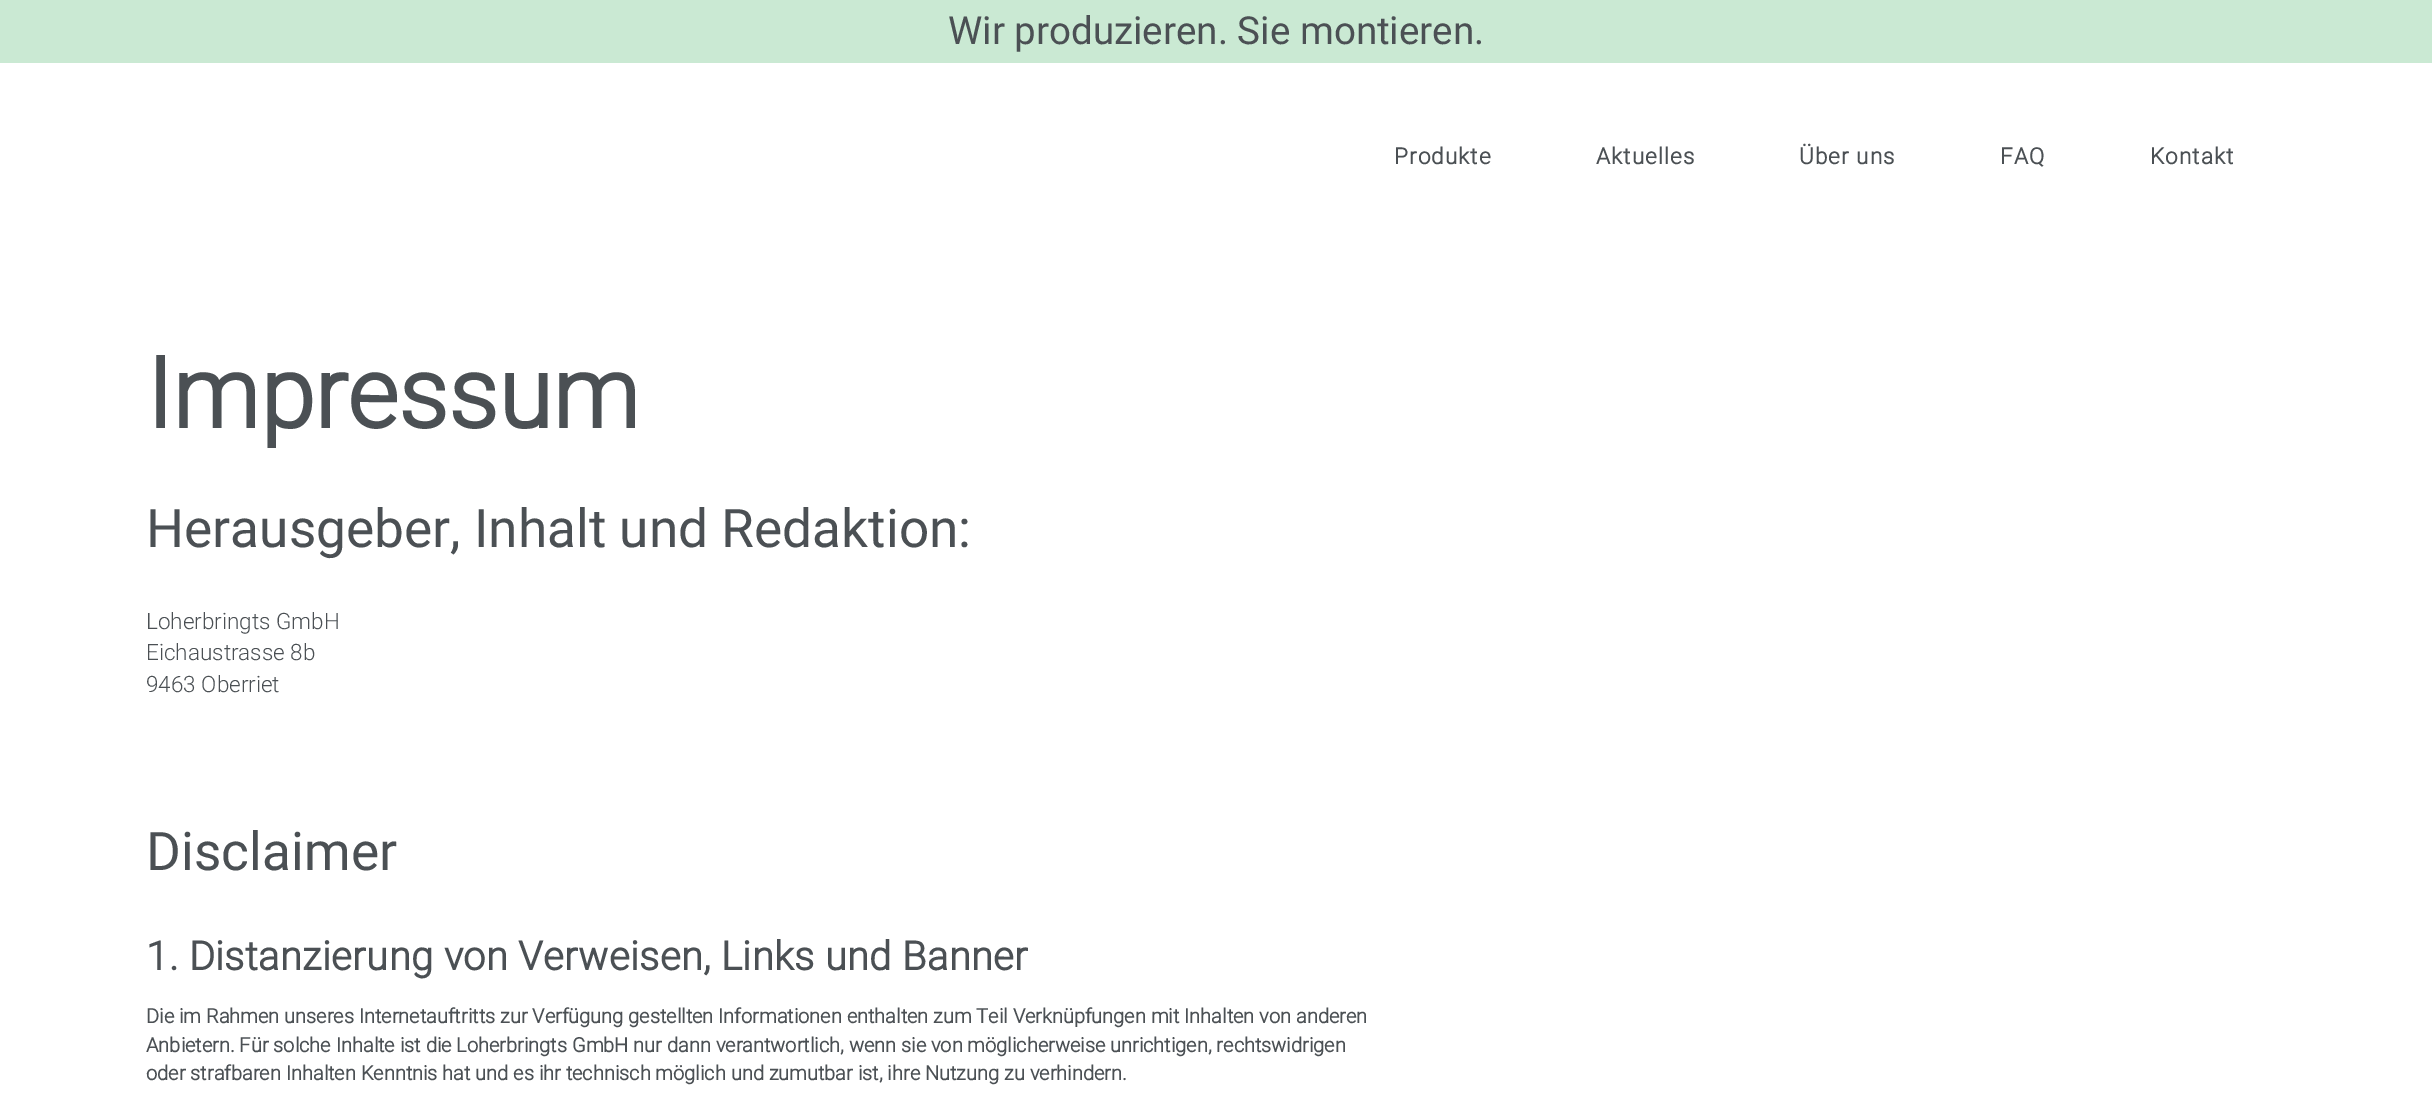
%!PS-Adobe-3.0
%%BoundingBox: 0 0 2432 1099
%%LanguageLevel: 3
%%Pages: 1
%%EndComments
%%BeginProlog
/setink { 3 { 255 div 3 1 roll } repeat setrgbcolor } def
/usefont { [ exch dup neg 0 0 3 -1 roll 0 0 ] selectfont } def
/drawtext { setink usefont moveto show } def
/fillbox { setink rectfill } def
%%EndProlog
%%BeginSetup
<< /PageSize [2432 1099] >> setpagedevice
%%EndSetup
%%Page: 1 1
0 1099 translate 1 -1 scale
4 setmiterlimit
0 0 2432 1099 255 255 255 fillbox
0 0 2432 63 202 233 211 fillbox
(Wir produzieren. Sie montieren.) 948 44 /Roboto-Regular 38.6 75 80 84 drawtext
/Roboto-Bold 22.5 usefont
1394 164 moveto 1.1 0 (Produkte) ashow
1596 164 moveto 1.1 0 (Aktuelles) ashow
1799 164 moveto 1.1 0 (Über uns) ashow
2000 164 moveto 1.1 0 (FAQ) ashow
2150 164 moveto 1.1 0 (Kontakt) ashow
(Impressum) 146 428 /Roboto-Bold 98.5 75 80 84 drawtext
(Herausgeber, Inhalt und Redaktion:) 146 547 /Roboto-Regular 53.25 75 80 84 drawtext
(Loherbringts GmbH) 146 629 /Roboto-Light 22.5 75 80 84 drawtext
(Eichaustrasse 8b) 146 660 /Roboto-Light 22.5 75 80 84 drawtext
(9463 Oberriet) 146 692 /Roboto-Light 22.5 75 80 84 drawtext
(Disclaimer) 146 870 /Roboto-Regular 53.25 75 80 84 drawtext
/Roboto-Bold 39.9 usefont
146 970 moveto 0.4 0 (1. Distanzierung von Verweisen, Links und Banner) ashow
(Die im Rahmen unseres Internetauftritts zur Verfügung gestellten Informationen enthalten zum Teil Verknüpfungen mit Inhalten von anderen) 146 1023 /Roboto-Bold 20 75 80 84 drawtext
(Anbietern. Für solche Inhalte ist die Loherbringts GmbH nur dann verantwortlich, wenn sie von möglicherweise unrichtigen, rechtswidrigen) 146 1052 /Roboto-Bold 20 75 80 84 drawtext
(oder strafbaren Inhalten Kenntnis hat und es ihr technisch möglich und zumutbar ist, ihre Nutzung zu verhindern.) 146 1080 /Roboto-Bold 20 75 80 84 drawtext
showpage
%%EOF
